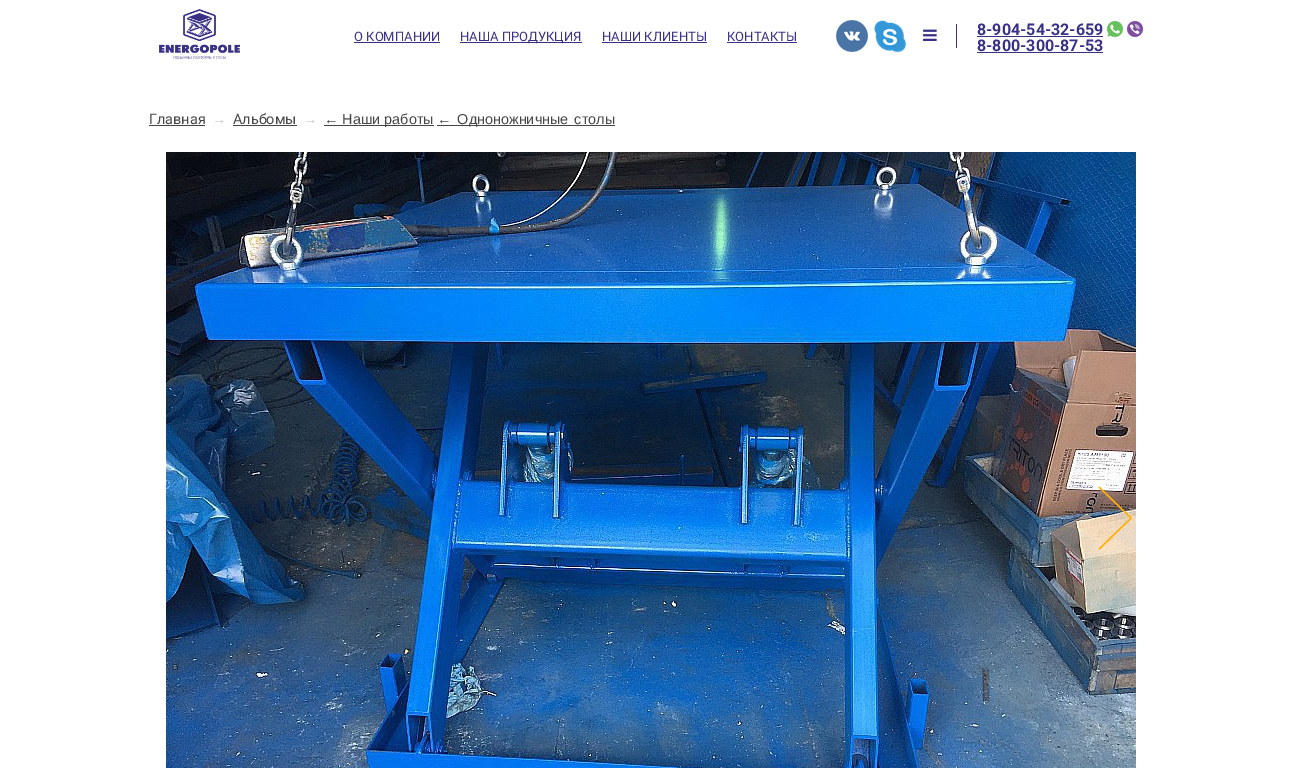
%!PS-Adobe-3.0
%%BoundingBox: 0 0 1302 768
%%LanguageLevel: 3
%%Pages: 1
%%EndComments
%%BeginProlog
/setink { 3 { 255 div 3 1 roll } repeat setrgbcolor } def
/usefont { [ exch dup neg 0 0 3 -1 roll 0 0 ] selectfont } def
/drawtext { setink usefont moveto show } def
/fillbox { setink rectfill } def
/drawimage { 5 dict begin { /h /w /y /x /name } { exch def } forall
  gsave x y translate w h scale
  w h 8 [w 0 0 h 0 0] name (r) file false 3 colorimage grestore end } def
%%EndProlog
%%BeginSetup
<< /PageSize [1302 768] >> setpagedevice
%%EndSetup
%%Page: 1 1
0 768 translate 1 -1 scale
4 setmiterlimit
0 0 1302 768 255 255 255 fillbox
(assets/img1.rgb) 159 9 81 50 drawimage
(О КОМПАНИИ) 354 41 /Roboto-Regular 13 57 49 134 drawtext
354 42 86 1 57 49 134 fillbox
460 42 122 1 57 49 134 fillbox
(НАША ПРОДУКЦИЯ) 460 41 /Roboto-Regular 13 57 49 134 drawtext
(НАШИ КЛИЕНТЫ) 602 41 /Roboto-Regular 13 57 49 134 drawtext
602 42 105 1 57 49 134 fillbox
(КОНТАКТЫ) 727 41 /Roboto-Regular 13 57 49 134 drawtext
727 42 70 1 57 49 134 fillbox
(assets/img2.rgb) 836 20 32 32 drawimage
(assets/img3.rgb) 874 20 32 32 drawimage
(assets/img4.rgb) 923 29 14 12 drawimage
956 24 1 24 57 49 134 fillbox
(8-904-54-32-659) 977 35 /Roboto-Bold 16 57 49 134 drawtext
977 36 126 1 57 49 134 fillbox
(assets/img5.rgb) 1107 21 16 16 drawimage
(assets/img6.rgb) 1127 21 16 16 drawimage
(8-800-300-87-53) 977 51 /Roboto-Bold 16 57 49 134 drawtext
977 52 126 1 57 49 134 fillbox
(Главная) 149 124 /Roboto-Regular 14.4 70 70 70 drawtext
149 125 56 1 70 70 70 fillbox
(→) 212 124 /LiberationSans-Regular 14.4 204 204 204 drawtext
(Альбомы) 233 124 /Roboto-Regular 14.4 70 70 70 drawtext
233 125 64 1 70 70 70 fillbox
(→) 303 124 /LiberationSans-Regular 14.4 204 204 204 drawtext
324 125 110 1 70 70 70 fillbox
(← Наши работы) 324 124 /LiberationSans-Regular 14.4 70 70 70 drawtext
437 125 178 1 70 70 70 fillbox
437 124 moveto 2 0 32 (← Одноножничные столы) widthshow
(assets/img7.rgb) 166 152 970 616 drawimage
(assets/img8.rgb) 1098 486 35 64 drawimage
showpage
%%EOF
